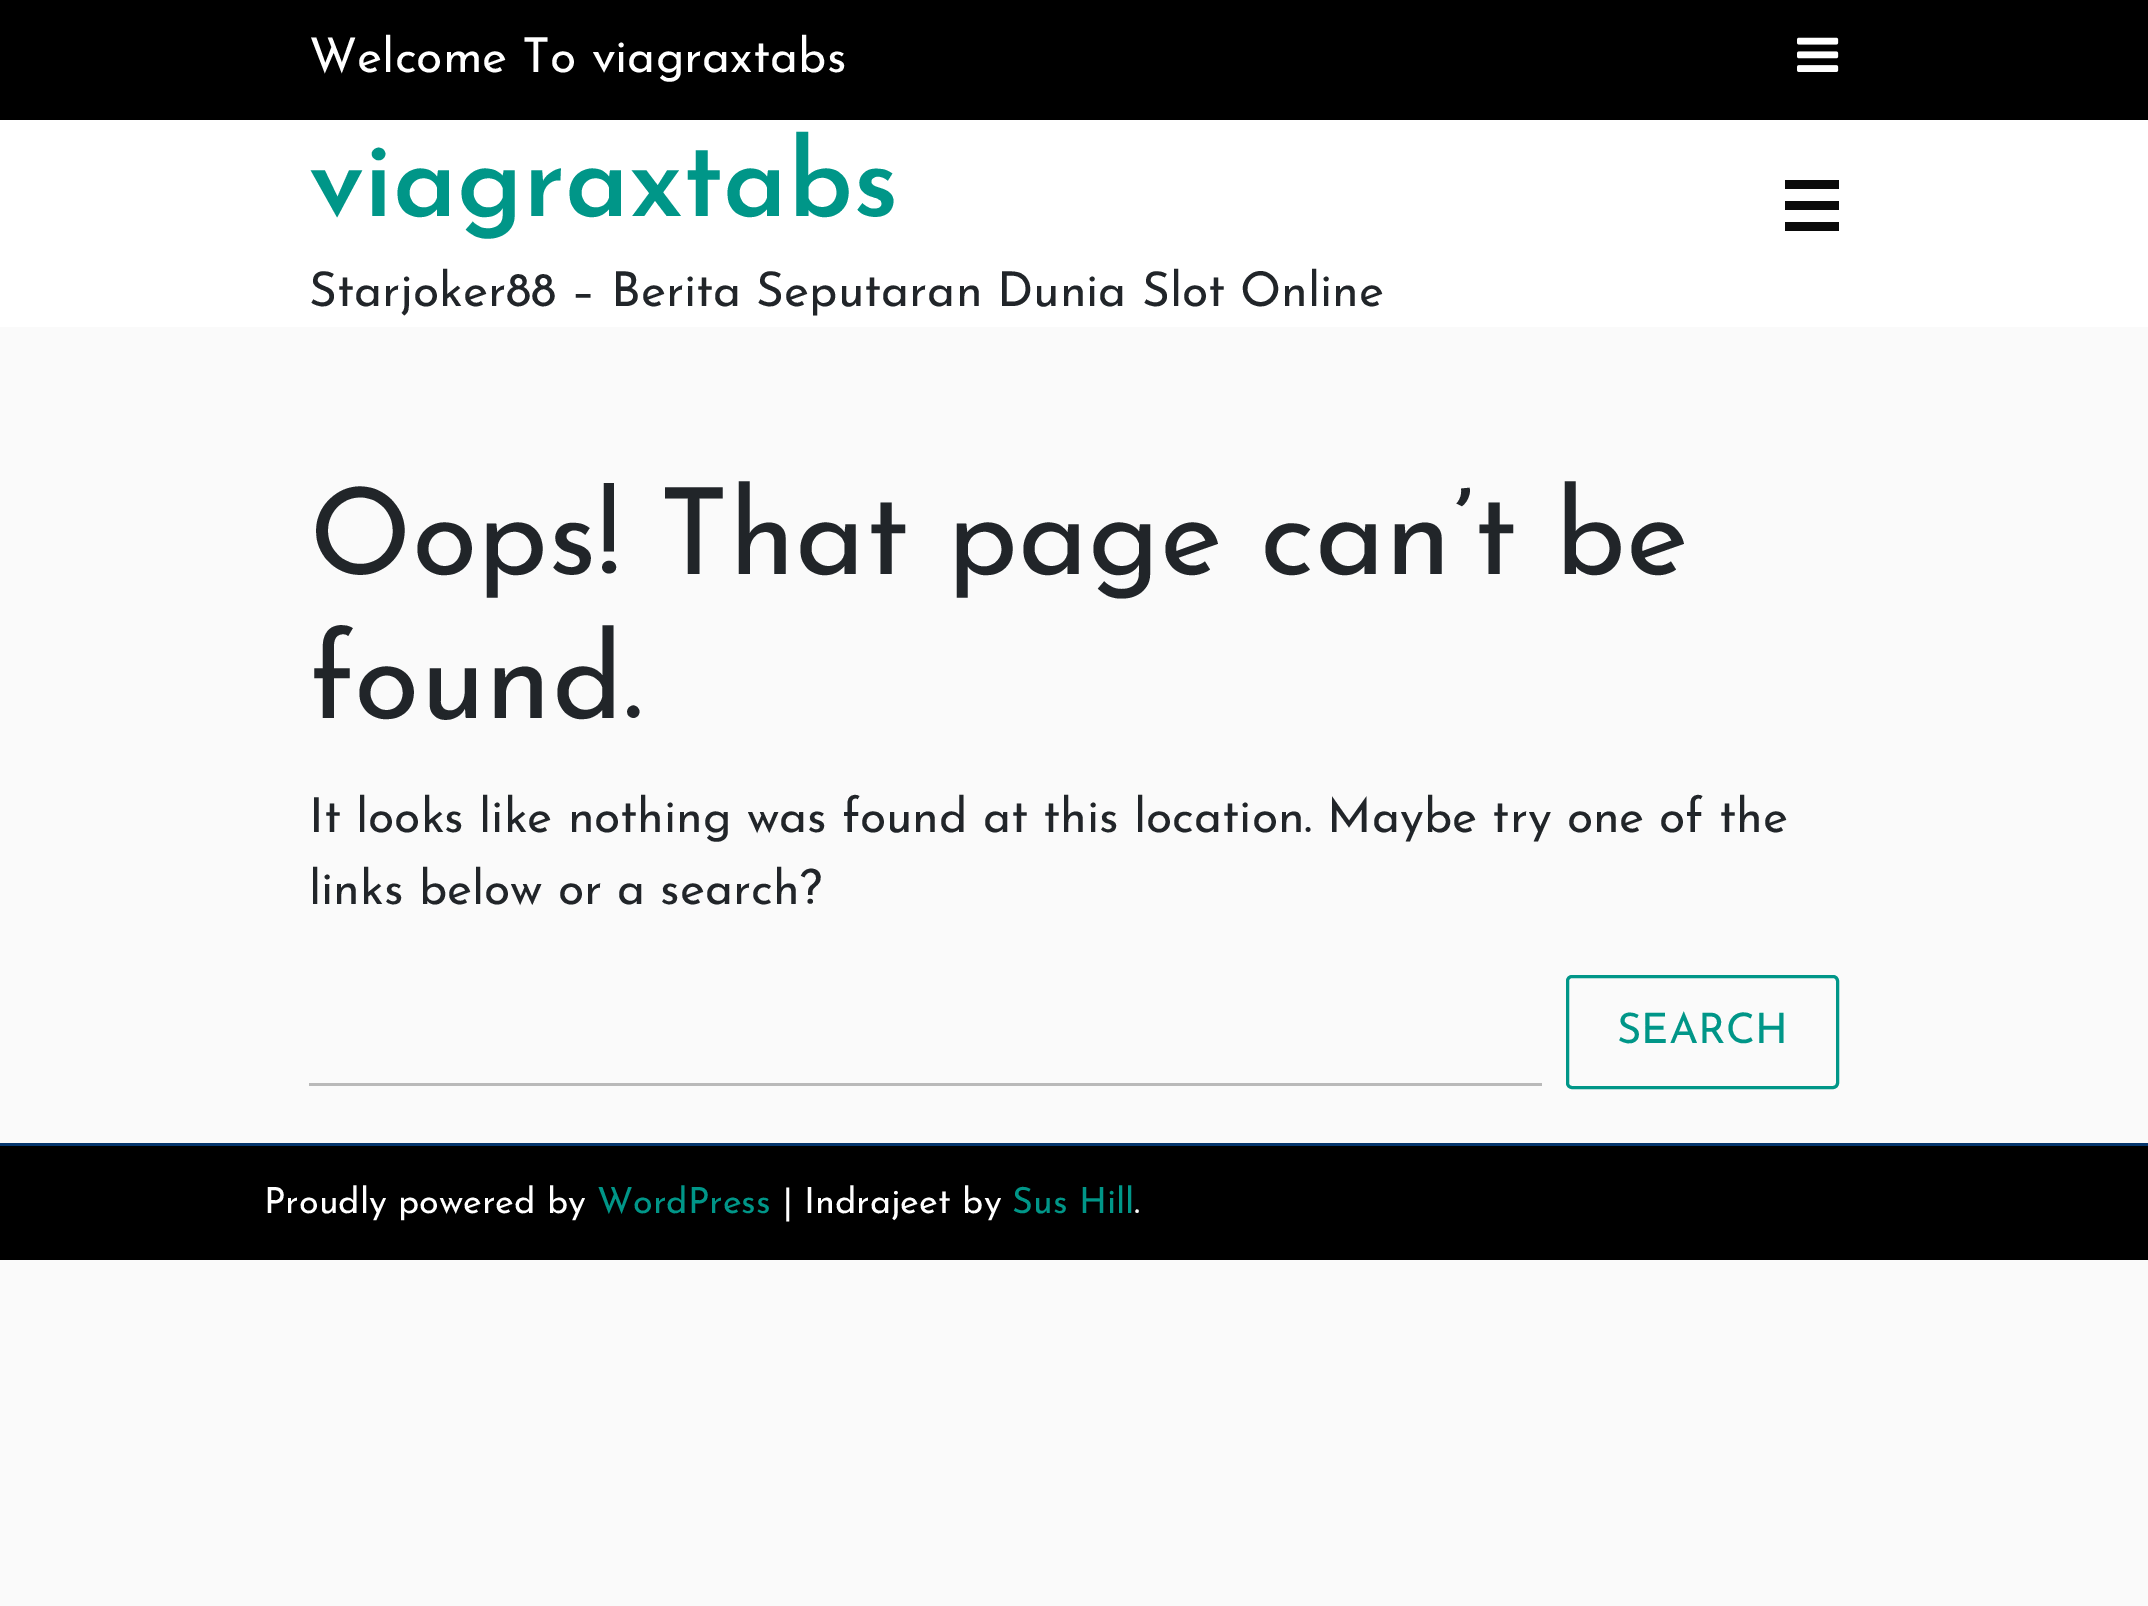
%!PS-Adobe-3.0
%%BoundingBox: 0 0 2148 1606
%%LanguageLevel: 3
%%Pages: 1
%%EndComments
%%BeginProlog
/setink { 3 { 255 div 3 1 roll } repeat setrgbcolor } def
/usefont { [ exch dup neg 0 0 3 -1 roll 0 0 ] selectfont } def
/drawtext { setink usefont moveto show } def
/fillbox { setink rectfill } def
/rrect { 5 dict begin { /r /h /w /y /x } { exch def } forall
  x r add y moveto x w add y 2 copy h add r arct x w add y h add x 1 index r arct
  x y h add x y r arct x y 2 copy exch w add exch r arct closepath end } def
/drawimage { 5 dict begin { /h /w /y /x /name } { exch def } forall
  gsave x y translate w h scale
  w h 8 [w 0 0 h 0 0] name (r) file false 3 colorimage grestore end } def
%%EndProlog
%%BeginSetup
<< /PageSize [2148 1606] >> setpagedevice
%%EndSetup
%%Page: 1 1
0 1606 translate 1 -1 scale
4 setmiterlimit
0 0 2148 1606 250 250 250 fillbox
0 0 2148 120 0 0 0 fillbox
(Welcome To viagraxtabs) 309 72 /JosefinSans-Regular 48 255 255 255 drawtext
(assets/img1.rgb) 1797 37 42 35 drawimage
0 120 2148 207 255 255 255 fillbox
(viagraxtabs) 309 216 /JosefinSans-SemiBold 108 0 150 136 drawtext
(Starjoker88 – Berita Seputaran Dunia Slot Online) 309 306 /JosefinSans-Regular 48 33 37 41 drawtext
1785 180 54 9 10 10 10 fillbox
1785 201 54 9 10 10 10 fillbox
1785 222 54 9 10 10 10 fillbox
(Oops! That page can’t be) 309 574 /JosefinSans-Regular 120 33 37 41 drawtext
(found.) 309 718 /JosefinSans-Regular 120 33 37 41 drawtext
(It looks like nothing was found at this location. Maybe try one of the) 309 832 /JosefinSans-Regular 48 33 37 41 drawtext
(links below or a search?) 309 904 /JosefinSans-Regular 48 33 37 41 drawtext
0 150 136 setink
3 setlinewidth
1567.5 976.5 270 111 4.5 rrect stroke
(SEARCH) 1617 1043 /JosefinSans-Regular 42 0 150 136 drawtext
309 1083 1233 3 185 185 185 fillbox
0 1143 2148 3 5 54 109 fillbox
0 1146 2148 114 0 0 0 fillbox
(Proudly powered by) 264 1213 /JosefinSans-Regular 36 255 255 255 drawtext
(WordPress) 597 1213 /JosefinSans-Regular 36 0 150 136 drawtext
(| Indrajeet by) 783 1213 /JosefinSans-Regular 36 255 255 255 drawtext
(Sus Hill) 1012 1213 /JosefinSans-Regular 36 0 150 136 drawtext
(.) 1134 1213 /JosefinSans-Regular 36 255 255 255 drawtext
showpage
%%EOF
